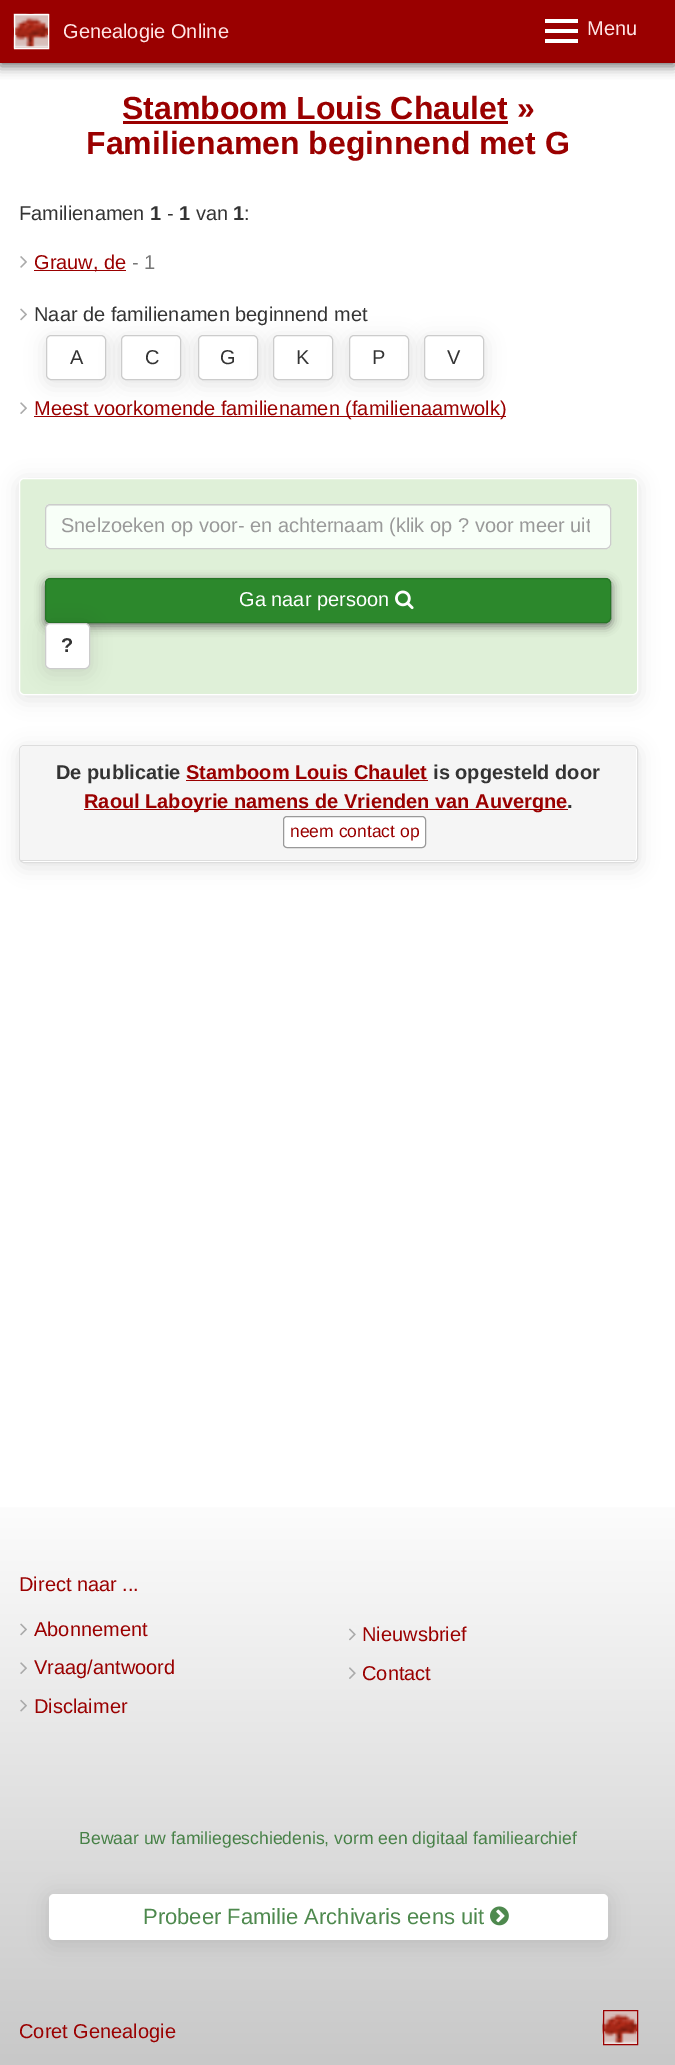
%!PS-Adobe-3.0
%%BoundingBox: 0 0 675 2065
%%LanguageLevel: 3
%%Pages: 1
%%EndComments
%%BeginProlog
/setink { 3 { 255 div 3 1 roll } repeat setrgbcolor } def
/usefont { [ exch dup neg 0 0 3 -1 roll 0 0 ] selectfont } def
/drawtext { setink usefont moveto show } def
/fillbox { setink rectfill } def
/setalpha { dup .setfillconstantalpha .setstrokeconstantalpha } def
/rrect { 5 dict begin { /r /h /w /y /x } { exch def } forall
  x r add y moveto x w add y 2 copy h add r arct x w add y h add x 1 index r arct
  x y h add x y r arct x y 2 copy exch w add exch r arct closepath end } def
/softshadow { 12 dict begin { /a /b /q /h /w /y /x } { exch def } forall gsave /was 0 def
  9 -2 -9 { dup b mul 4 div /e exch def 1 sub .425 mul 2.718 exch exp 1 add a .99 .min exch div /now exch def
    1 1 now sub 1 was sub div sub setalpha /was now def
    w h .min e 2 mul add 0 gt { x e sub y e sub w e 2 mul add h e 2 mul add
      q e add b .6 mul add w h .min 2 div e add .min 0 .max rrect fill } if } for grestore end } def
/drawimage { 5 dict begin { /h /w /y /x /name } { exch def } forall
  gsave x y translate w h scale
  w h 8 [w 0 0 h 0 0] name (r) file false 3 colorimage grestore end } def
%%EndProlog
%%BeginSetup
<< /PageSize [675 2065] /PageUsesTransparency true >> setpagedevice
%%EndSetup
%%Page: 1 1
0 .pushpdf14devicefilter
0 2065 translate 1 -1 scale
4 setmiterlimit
0 0 675 2065 255 255 255 fillbox
50 50 50 setink
0 4 675 62 0 6 0.73 softshadow
0 0 675 63 154 0 0 fillbox
(assets/img1.rgb) 13 13 36 36 drawimage
255 255 255 setink
14.5 14.5 34 34 rectstroke
(Genealogie Online) 63 38 /LiberationSans-Regular 20 255 230 230 drawtext
545 39 33 4 255 255 255 fillbox
545 19 33 4 255 255 255 fillbox
545 29 33 4 255 255 255 fillbox
(Menu) 587 35 /LiberationSans-Regular 20 255 230 230 drawtext
(Stamboom Louis Chaulet ») 122 119 /LiberationSans-Bold 32 154 0 0 drawtext
123 121 385 3 154 0 0 fillbox
(Familienamen beginnend met G) 86 154 /LiberationSans-Bold 32 154 0 0 drawtext
(Familienamen) 19 220 /LiberationSans-Regular 20 51 51 51 drawtext
(1) 150 220 /LiberationSans-Bold 20 51 51 51 drawtext
(-) 167 220 /LiberationSans-Regular 20 51 51 51 drawtext
(1) 179 220 /LiberationSans-Bold 20 51 51 51 drawtext
(van) 196 220 /LiberationSans-Regular 20 51 51 51 drawtext
(1) 233 220 /LiberationSans-Bold 20 51 51 51 drawtext
(:) 244 220 /LiberationSans-Regular 20 51 51 51 drawtext
(assets/img2.rgb) 20 256 7 12 drawimage
34 270 92 1 154 0 0 fillbox
(Grauw, de) 34 269 /LiberationSans-Regular 20 154 0 0 drawtext
(- 1) 132 269 /LiberationSans-Regular 20 119 119 119 drawtext
(assets/img3.rgb) 20 308 7 13 drawimage
(Naar de familienamen beginnend met) 34 321 /LiberationSans-Regular 20 51 51 51 drawtext
0 0 0 setink
45 338 63 47 6 9.5 0.1 softshadow
255 255 255 setink
46.5 335.5 59 44 4.5 rrect gsave fill grestore
204 204 204 setink
stroke
(A) 70 364 /LiberationSans-Regular 20 51 51 51 drawtext
0 0 0 setink
120 338 63 47 6 9.5 0.1 softshadow
255 255 255 setink
121.5 335.5 59 44 4.5 rrect gsave fill grestore
204 204 204 setink
stroke
(C) 145 364 /LiberationSans-Regular 20 51 51 51 drawtext
0 0 0 setink
196 338 63 47 6 9.5 0.1 softshadow
255 255 255 setink
198.5 335.5 59 44 4.5 rrect gsave fill grestore
204 204 204 setink
stroke
(G) 220 364 /LiberationSans-Regular 20 51 51 51 drawtext
0 0 0 setink
271 338 63 47 6 9.5 0.1 softshadow
255 255 255 setink
273.5 335.5 59 44 4.5 rrect gsave fill grestore
204 204 204 setink
stroke
(K) 296 364 /LiberationSans-Regular 20 51 51 51 drawtext
0 0 0 setink
348 338 62 47 6 9.5 0.1 softshadow
255 255 255 setink
349.5 335.5 59 44 4.5 rrect gsave fill grestore
204 204 204 setink
stroke
(P) 372 364 /LiberationSans-Regular 20 51 51 51 drawtext
0 0 0 setink
423 338 62 47 6 9.5 0.1 softshadow
255 255 255 setink
424.5 335.5 59 44 4.5 rrect gsave fill grestore
204 204 204 setink
stroke
(V) 447 364 /LiberationSans-Regular 20 51 51 51 drawtext
(assets/img4.rgb) 20 402 7 12 drawimage
34 416 472 1 154 0 0 fillbox
(Meest voorkomende familienamen \(familienaamwolk\)) 34 415 /LiberationSans-Regular 20 154 0 0 drawtext
0 0 0 setink
18 480 621 220 6 9.5 0.1 softshadow
223 240 216 setink
19.5 478.5 618 216 4.5 rrect gsave fill grestore
255 255 255 setink
stroke
248 255 248 setink
45 504 566 45 5 rrect fill
229 236 229 setink
50 506 moveto 606 506 lineto 608 506 610 508 610 510 curveto 610 507 609 505 606 505 curveto 50 505 lineto 47 505 46 507 46 510 curveto 46 508 48 506 50 506 curveto closepath fill
204 204 204 setink
45.5 504.5 565 44 4.5 rrect stroke
gsave
61 515 529 23 rectclip
(Snelzoeken op voor- en achternaam \(klik op ? voor meer uit) 61 532 /LiberationSans-Regular 20 153 153 153 drawtext
grestore
50 50 50 setink
45 581 566 45 5 5 0.73 softshadow
44 136 44 setink
45.5 578.5 565 44 4.5 rrect gsave fill grestore
38 117 38 setink
stroke
(Ga naar persoon) 239 606 /LiberationSans-Regular 20 255 255 255 drawtext
(assets/img5.rgb) 395 590 19 20 drawimage
0 0 0 setink
44 625 47 49 6 9.5 0.1 softshadow
255 255 255 setink
45.5 623.5 44 45 4.5 rrect gsave fill grestore
204 204 204 setink
stroke
(?) 61 652 /LiberationSans-Bold 20 51 51 51 drawtext
0 0 0 setink
18 748 621 120 6 9.5 0.1 softshadow
255 255 255 setink
19.5 745.5 618 117 4.5 rrect gsave fill grestore
221 221 221 setink
stroke
245 245 245 setink
20 746 616 115 4 rrect fill
gsave
20 746 616 115 4 rrect clip newpath
20 860 616 1 221 221 221 fillbox
grestore
(De publicatie) 56 779 /LiberationSans-Bold 20 51 51 51 drawtext
(Stamboom Louis Chaulet) 186 779 /LiberationSans-Bold 20 154 0 0 drawtext
186 780 242 1 154 0 0 fillbox
(is opgesteld door) 433 779 /LiberationSans-Bold 20 51 51 51 drawtext
84 809 484 1 154 0 0 fillbox
(Raoul Laboyrie namens de Vrienden van Auvergne) 84 808 /LiberationSans-Bold 20 154 0 0 drawtext
(.) 567 808 /LiberationSans-Bold 20 51 51 51 drawtext
255 255 255 setink
283.5 816.5 142 31 3.5 rrect gsave fill grestore
153 153 153 setink
stroke
(neem contact op) 290 837 /LiberationSans-Regular 17.5 154 0 0 drawtext
gsave 0 1507 moveto 675 1507 lineto 675 2065 lineto 0 2065 lineto closepath clip newpath
<< /ShadingType 2 /ColorSpace /DeviceRGB /Coords [338 2065 338 1480] /Extend [true true] /Function << /FunctionType 2 /Domain [0 1] /C0 [0.784 0.784 0.784] /C1 [1 1 1] /N 1 >> >> shfill grestore
(Direct naar ...) 19 1591 /LiberationSans-Regular 20 154 0 0 drawtext
(assets/img6.rgb) 20 1623 7 13 drawimage
(Abonnement) 34 1636 /LiberationSans-Regular 20 154 0 0 drawtext
(assets/img7.rgb) 20 1662 7 12 drawimage
(Vraag/antwoord) 34 1674 /LiberationSans-Regular 20 154 0 0 drawtext
(assets/img8.rgb) 20 1699 7 13 drawimage
(Disclaimer) 34 1713 /LiberationSans-Regular 20 154 0 0 drawtext
(assets/img9.rgb) 349 1628 7 13 drawimage
(Nieuwsbrief) 362 1641 /LiberationSans-Regular 20 154 0 0 drawtext
(assets/img10.rgb) 349 1667 7 12 drawimage
(Contact) 362 1680 /LiberationSans-Regular 20 154 0 0 drawtext
(Bewaar uw familiegeschiedenis, vorm een digitaal familiearchief) 79 1844 /LiberationSans-Regular 17.6 71 129 71 drawtext
0 0 0 setink
48 1896 561 49 6 9.5 0.1 softshadow
255 255 255 setink
49 1894 559 46 5 rrect fill
(Probeer Familie Archivaris eens uit) 143 1924 /LiberationSans-Regular 22 78 137 78 drawtext
(assets/img11.rgb) 490 1906 19 20 drawimage
(Coret Genealogie) 19 2038 /LiberationSans-Regular 20 154 0 0 drawtext
(assets/img12.rgb) 602 2010 35 35 drawimage
603.5 2010.5 34 34 rectstroke
.poppdf14devicefilter showpage
%%EOF
